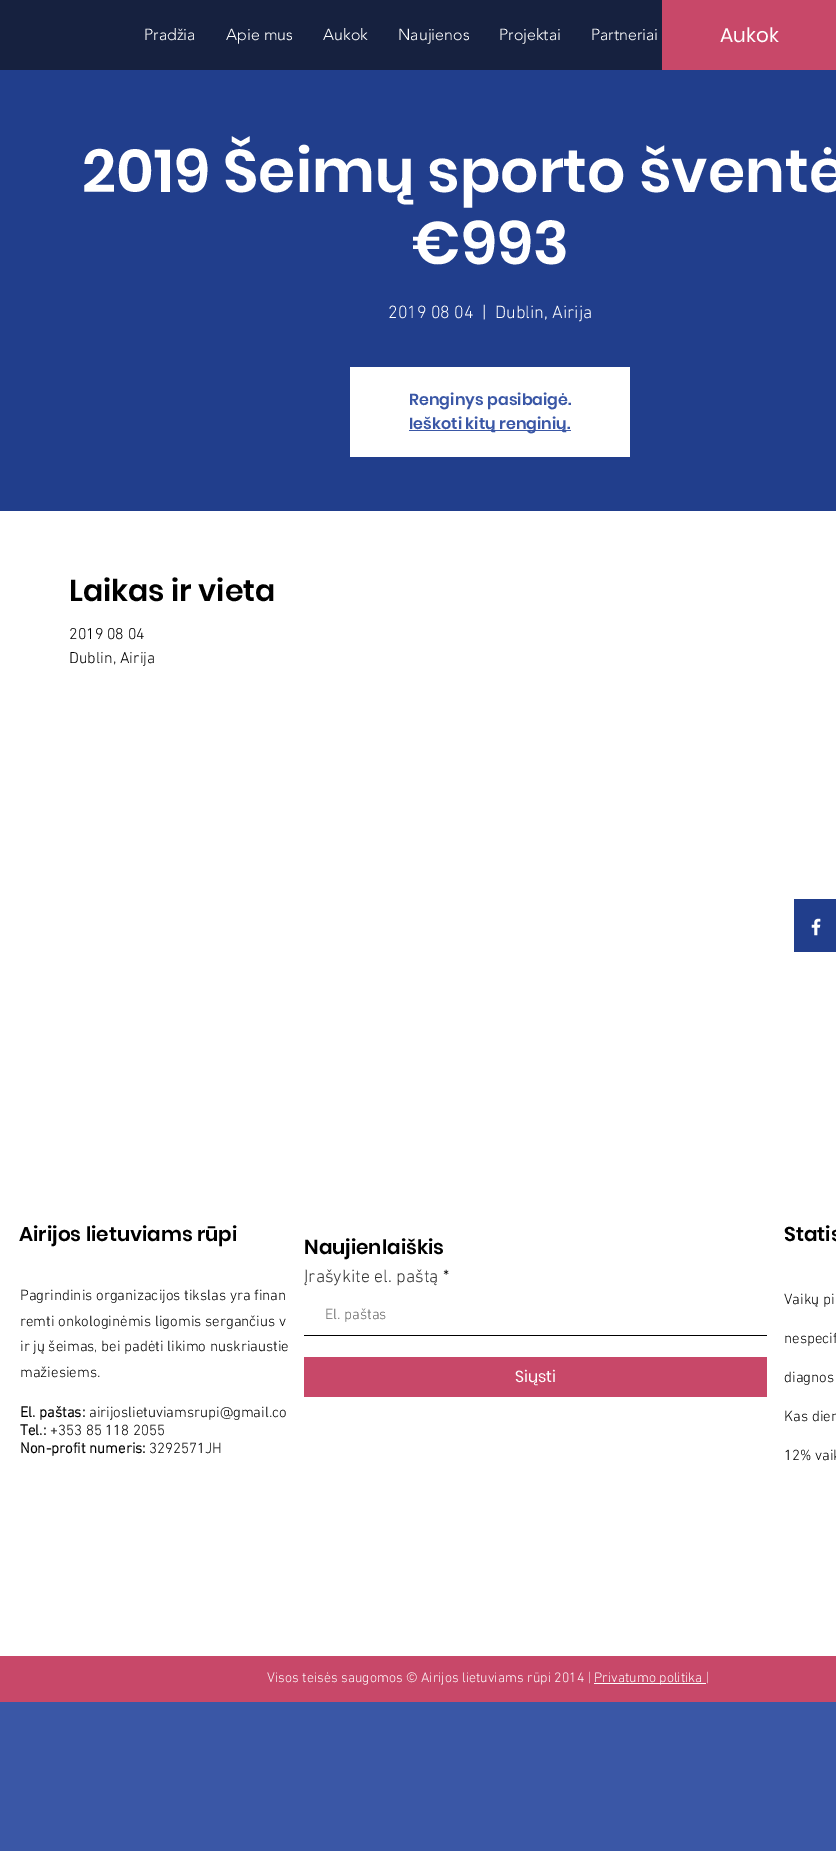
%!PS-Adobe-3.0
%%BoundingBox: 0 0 836 1851
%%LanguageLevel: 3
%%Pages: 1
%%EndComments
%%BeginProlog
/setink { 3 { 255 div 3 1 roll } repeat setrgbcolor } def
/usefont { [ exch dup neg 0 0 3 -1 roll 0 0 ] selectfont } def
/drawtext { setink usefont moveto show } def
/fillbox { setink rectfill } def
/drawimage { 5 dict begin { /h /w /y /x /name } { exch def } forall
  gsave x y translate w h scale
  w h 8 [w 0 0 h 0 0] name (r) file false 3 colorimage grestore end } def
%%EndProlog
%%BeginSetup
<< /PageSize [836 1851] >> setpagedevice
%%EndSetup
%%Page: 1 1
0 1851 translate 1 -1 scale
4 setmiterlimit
0 0 836 1851 58 87 166 fillbox
0 0 662 70 22 33 63 fillbox
(Pradžia) 144 40 /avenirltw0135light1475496-Light 16 255 255 255 drawtext
(Apie mus) 226 40 /avenirltw0135light1475496-Light 16 255 255 255 drawtext
(Aukok) 323 40 /avenirltw0135light1475496-Light 16 255 255 255 drawtext
(Naujienos) 398 40 /avenirltw0135light1475496-Light 16 255 255 255 drawtext
(Projektai) 499 40 /avenirltw0135light1475496-Light 16 255 255 255 drawtext
(Partneriai) 591 40 /avenirltw0135light1475496-Light 16 255 255 255 drawtext
662 0 174 70 200 72 105 fillbox
(Aukok) 720 42 /Poppins-Regular 20 255 255 255 drawtext
0 70 836 441 33 62 140 fillbox
(2019 Šeimų sporto šventė) 82 192 /Poppins-SemiBold 60 255 255 255 drawtext
(€993) 412 264 /Poppins-SemiBold 60 255 255 255 drawtext
(2019 08 04) 388 318 /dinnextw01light-Light 18 255 255 255 drawtext
(|) 482 318 /dinnextw01light-Light 18 255 255 255 drawtext
(Dublin, Airija) 495 318 /dinnextw01light-Light 18 255 255 255 drawtext
350 367 280 90 255 255 255 fillbox
(Renginys pasibaigė.) 409 405 /Poppins-SemiBold 16 58 87 166 drawtext
409 430 162 1 58 87 166 fillbox
(Ieškoti kitų renginių.) 409 429 /Poppins-SemiBold 16 58 87 166 drawtext
0 511 836 1145 255 255 255 fillbox
(Laikas ir vieta) 69 601 /Poppins-SemiBold 30 0 0 0 drawtext
(2019 08 04) 69 639 /dinnextw01light-Light 16 0 0 0 drawtext
(Dublin, Airija) 69 663 /dinnextw01light-Light 16 0 0 0 drawtext
794 899 42 53 33 62 140 fillbox
(assets/img1.rgb) 811 918 10 18 drawimage
(Airijos lietuviams rūpi) 19 1241 /Poppins-SemiBold 20 0 0 0 drawtext
(Pagrindinis organizacijos tikslas yra finan) 20 1300 /dinnextw01light-Light 15 0 0 0 drawtext
(remti onkologinėmis ligomis sergančius v) 20 1326 /dinnextw01light-Light 15 0 0 0 drawtext
(ir jų šeimas, bei padėti likimo nuskriaustie) 20 1351 /dinnextw01light-Light 15 0 0 0 drawtext
(mažiesiems.) 20 1377 /dinnextw01light-Light 15 0 0 0 drawtext
(El. paštas:) 20 1417 /dinnextw01light-Bold 15 0 0 0 drawtext
(airijoslietuviamsrupi@gmail.co) 89 1417 /dinnextw01light-Light 15 0 0 0 drawtext
(Tel.:) 20 1435 /dinnextw01light-Bold 15 0 0 0 drawtext
(+353 85 118 2055) 50 1435 /dinnextw01light-Light 15 0 0 0 drawtext
(Non-profit numeris:) 20 1453 /dinnextw01light-Bold 15 0 0 0 drawtext
(3292571JH) 149 1453 /dinnextw01light-Light 15 0 0 0 drawtext
(Naujienlaiškis) 304 1254 /Poppins-SemiBold 20 0 0 0 drawtext
(Įrašykite el. paštą) 304 1282 /dinnextw01light-Light 18 51 51 51 drawtext
(*) 443 1282 /dinnextw01light-Light 18 0 0 0 drawtext
304 1335 463 1 0 0 0 fillbox
(El. paštas) 325 1319 /dinnextw01light-Light 15 102 102 102 drawtext
304 1357 463 40 200 72 105 fillbox
(Siųsti) 515 1382 /Poppins-Regular 16 255 255 255 drawtext
(Statis) 784 1241 /Poppins-SemiBold 20 0 0 0 drawtext
(Vaikų pi) 784 1304 /dinnextw01light-Light 15 0 0 0 drawtext
(nespecif) 784 1343 /dinnextw01light-Light 15 0 0 0 drawtext
(diagnos) 784 1382 /dinnextw01light-Light 15 0 0 0 drawtext
(Kas dien) 784 1421 /dinnextw01light-Light 15 0 0 0 drawtext
(12% vaik) 784 1460 /dinnextw01light-Light 15 0 0 0 drawtext
0 1656 836 46 200 72 105 fillbox
(Visos teisės saugomos © Airijos lietuviams rūpi 2014 |) 267 1682 /dinnextw01light-Light 14 255 255 255 drawtext
594 1683 112 1 255 255 255 fillbox
(Privatumo politika |) 594 1682 /dinnextw01light-Light 14 255 255 255 drawtext
showpage
%%EOF
